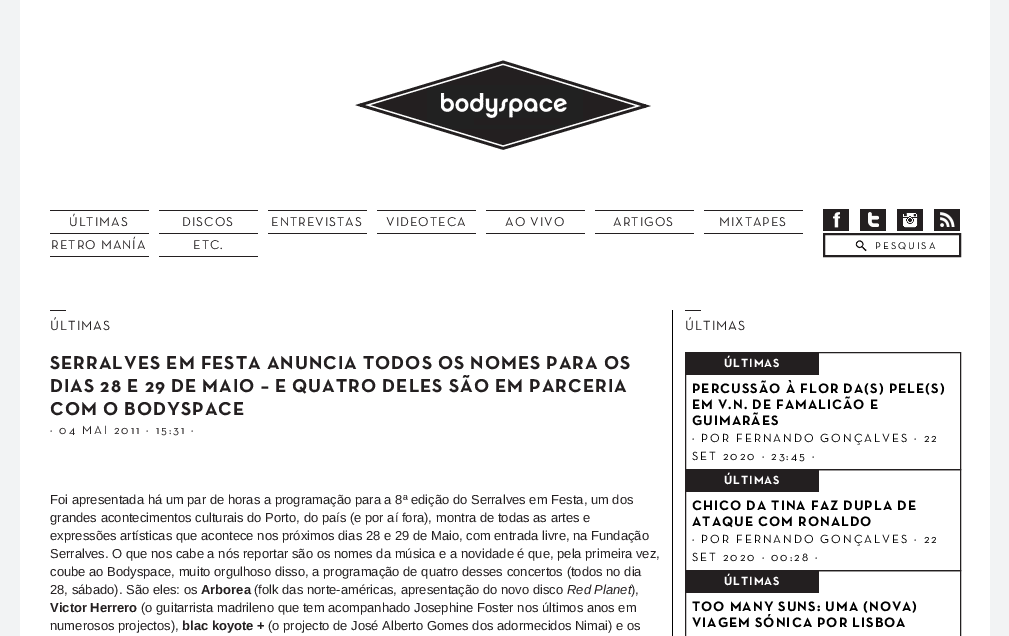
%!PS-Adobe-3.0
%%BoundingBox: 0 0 1009 636
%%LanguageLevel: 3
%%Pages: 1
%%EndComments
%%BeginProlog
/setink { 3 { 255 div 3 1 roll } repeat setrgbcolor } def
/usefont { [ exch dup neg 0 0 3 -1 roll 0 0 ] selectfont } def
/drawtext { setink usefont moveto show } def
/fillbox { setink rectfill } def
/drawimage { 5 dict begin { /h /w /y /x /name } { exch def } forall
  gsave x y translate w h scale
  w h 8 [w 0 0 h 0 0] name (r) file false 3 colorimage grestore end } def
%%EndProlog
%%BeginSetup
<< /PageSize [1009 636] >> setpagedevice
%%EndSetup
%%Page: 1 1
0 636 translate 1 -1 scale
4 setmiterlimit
0 0 1009 636 242 243 244 fillbox
20 0 970 636 255 255 255 fillbox
(assets/img1.rgb) 355 60 296 90 drawimage
50 210 99 1 35 31 32 fillbox
50 233 99 1 35 31 32 fillbox
/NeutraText-Regular 13 usefont
69 226 moveto 1 0 (ÚLTIMAS) ashow
159 210 99 1 35 31 32 fillbox
159 233 99 1 35 31 32 fillbox
182 226 moveto 1 0 (DISCOS) ashow
268 210 99 1 35 31 32 fillbox
268 233 99 1 35 31 32 fillbox
271 226 moveto 1 0 (ENTREVISTAS) ashow
377 210 99 1 35 31 32 fillbox
377 233 99 1 35 31 32 fillbox
386 226 moveto 1 0 (VIDEOTECA) ashow
486 210 99 1 35 31 32 fillbox
486 233 99 1 35 31 32 fillbox
505 226 moveto 1 0 (AO VIVO) ashow
595 210 99 1 35 31 32 fillbox
595 233 99 1 35 31 32 fillbox
613 226 moveto 1 0 (ARTIGOS) ashow
704 210 99 1 35 31 32 fillbox
704 233 99 1 35 31 32 fillbox
719 226 moveto 1 0 (MIXTAPES) ashow
(assets/img2.rgb) 823 209 26 22 drawimage
(assets/img3.rgb) 860 209 26 22 drawimage
(assets/img4.rgb) 897 209 26 22 drawimage
(assets/img5.rgb) 934 209 26 22 drawimage
50 256 99 1 35 31 32 fillbox
51 249 moveto 1 0 (RETRO MANÍA) ashow
159 256 99 1 35 31 32 fillbox
193 249 moveto 1 0 (ETC.) ashow
2 setlinewidth
824 234 136 22 rectstroke
(assets/img6.rgb) 855 240 12 12 drawimage
/NeutraText-Regular 10 usefont
0 0 0 setink
875 249 moveto 2 0 (PESQUISA) ashow
672 310 1 326 0 0 0 fillbox
50 310 16 1 35 31 32 fillbox
/NeutraText-Regular 13.5 usefont
50 330 moveto 1 0 (ÚLTIMAS) ashow
/NeutraText-Bold 19 usefont
50 369 moveto 1 0 (SERRALVES EM FESTA ANUNCIA TODOS OS NOMES PARA OS) ashow
50 392 moveto 1 0 (DIAS 28 E 29 DE MAIO – E QUATRO DELES SÃO EM PARCERIA) ashow
50 415 moveto 1 0 (COM O BODYSPACE) ashow
/NeutraText-Regular 12 usefont
50 434 moveto 2 0 (· 04 MAI 2011 · 15:31 ·) ashow
(Foi apresentada há um par de horas a programação para a 8ª edição do Serralves em Festa, um dos) 50 504 /LiberationSans-Regular 13 35 31 32 drawtext
(grandes acontecimentos culturais do Porto, do país \(e por aí fora\), montra de todas as artes e) 50 522 /LiberationSans-Regular 13 35 31 32 drawtext
(expressões artísticas que acontece nos próximos dias 28 e 29 de Maio, com entrada livre, na Fundação) 50 540 /LiberationSans-Regular 13 35 31 32 drawtext
(Serralves. O que nos cabe a nós reportar são os nomes da música e a novidade é que, pela primeira vez,) 50 558 /LiberationSans-Regular 13 35 31 32 drawtext
(coube ao Bodyspace, muito orgulhoso disso, a programação de quatro desses concertos \(todos no dia) 50 576 /LiberationSans-Regular 13 35 31 32 drawtext
(28, sábado\). São eles: os) 50 594 /LiberationSans-Regular 13 35 31 32 drawtext
(Arborea) 201 594 /LiberationSans-Bold 13 35 31 32 drawtext
(\(folk das norte-américas, apresentação do novo disco) 254 594 /LiberationSans-Regular 13 35 31 32 drawtext
(Red Planet) 567 594 /LiberationSans-Italic 13 35 31 32 drawtext
(\),) 631 594 /LiberationSans-Regular 13 35 31 32 drawtext
(Victor Herrero) 50 612 /LiberationSans-Bold 13 35 31 32 drawtext
(\(o guitarrista madrileno que tem acompanhado Josephine Foster nos últimos anos em) 141 612 /LiberationSans-Regular 13 35 31 32 drawtext
(numerosos projectos\),) 50 630 /LiberationSans-Regular 13 35 31 32 drawtext
(blac koyote +) 182 630 /LiberationSans-Bold 13 35 31 32 drawtext
(\(o projecto de José Alberto Gomes dos adormecidos Nimai\) e os) 268 630 /LiberationSans-Regular 13 35 31 32 drawtext
685 310 16 1 35 31 32 fillbox
/NeutraText-Regular 13.5 usefont
685 330 moveto 1 0 (ÚLTIMAS) ashow
1 setlinewidth
685.5 352.5 275 117 rectstroke
686 353 133 22 35 31 32 fillbox
/NeutraText-Bold 12 usefont
255 255 255 setink
724 367 moveto 1 0 (ÚLTIMAS) ashow
/NeutraText-Bold 14 usefont
0 0 0 setink
692 393 moveto 1 0 (PERCUSSÃO À FLOR DA\(S\) PELE\(S\)) ashow
692 409 moveto 1 0 (EM V.N. DE FAMALICÃO E) ashow
692 425 moveto 1 0 (GUIMARÃES) ashow
/NeutraText-Regular 12 usefont
692 442 moveto 2 0 (· POR FERNANDO GONÇALVES · 22) ashow
692 460 moveto 2 0 (SET 2020 · 23:45 ·) ashow
35 31 32 setink
685.5 469.5 275 101 rectstroke
686 470 133 22 35 31 32 fillbox
/NeutraText-Bold 12 usefont
255 255 255 setink
724 484 moveto 1 0 (ÚLTIMAS) ashow
/NeutraText-Bold 14 usefont
0 0 0 setink
692 510 moveto 1 0 (CHICO DA TINA FAZ DUPLA DE) ashow
692 526 moveto 1 0 (ATAQUE COM RONALDO) ashow
/NeutraText-Regular 12 usefont
692 543 moveto 2 0 (· POR FERNANDO GONÇALVES · 22) ashow
692 561 moveto 2 0 (SET 2020 · 00:28 ·) ashow
35 31 32 setink
685.5 570.5 275 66 rectstroke
686 571 133 22 35 31 32 fillbox
/NeutraText-Bold 12 usefont
255 255 255 setink
724 585 moveto 1 0 (ÚLTIMAS) ashow
/NeutraText-Bold 14 usefont
0 0 0 setink
692 611 moveto 1 0 (TOO MANY SUNS: UMA \(NOVA\)) ashow
692 627 moveto 1 0 (VIAGEM SÓNICA POR LISBOA) ashow
showpage
%%EOF
